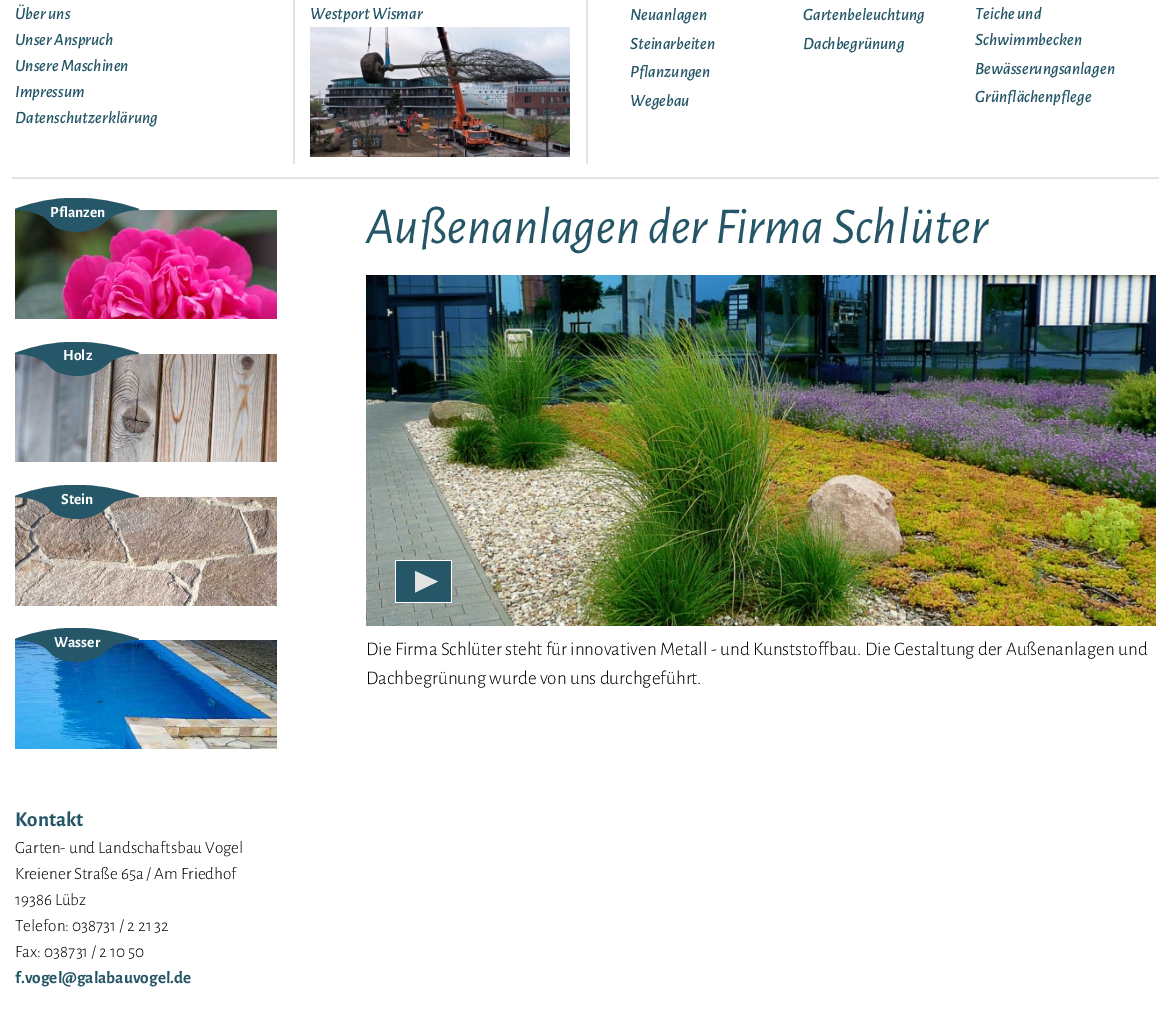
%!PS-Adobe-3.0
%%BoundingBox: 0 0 1171 1031
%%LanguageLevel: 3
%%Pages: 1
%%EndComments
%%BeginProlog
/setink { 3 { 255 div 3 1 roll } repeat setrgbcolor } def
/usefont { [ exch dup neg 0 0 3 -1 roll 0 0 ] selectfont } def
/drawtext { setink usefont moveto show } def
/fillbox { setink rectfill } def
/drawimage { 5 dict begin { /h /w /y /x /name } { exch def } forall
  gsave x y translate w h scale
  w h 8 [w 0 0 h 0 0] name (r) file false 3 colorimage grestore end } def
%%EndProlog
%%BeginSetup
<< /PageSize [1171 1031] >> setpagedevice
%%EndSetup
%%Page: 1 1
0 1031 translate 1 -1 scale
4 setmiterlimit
0 0 1171 1031 255 255 255 fillbox
(Über uns) 15 19 /AlegreyaSans-MediumItalic 17.25 36 86 104 drawtext
(Unser Anspruch) 15 45 /AlegreyaSans-MediumItalic 17.25 36 86 104 drawtext
(Unsere Maschinen) 15 71 /AlegreyaSans-MediumItalic 17.25 36 86 104 drawtext
(Impressum) 15 97 /AlegreyaSans-MediumItalic 17.25 36 86 104 drawtext
(Datenschutzerklärung) 15 123 /AlegreyaSans-MediumItalic 17.25 36 86 104 drawtext
293 0 2 164 227 227 227 fillbox
(Westport Wismar) 310 19 /AlegreyaSans-MediumItalic 17.25 36 86 104 drawtext
(assets/img1.rgb) 310 27 260 130 drawimage
586 0 2 164 227 227 227 fillbox
(Neuanlagen) 630 20 /AlegreyaSans-MediumItalic 17.25 36 86 104 drawtext
(Gartenbeleuchtung) 803 20 /AlegreyaSans-MediumItalic 17.25 36 86 104 drawtext
(Teiche und) 975 19 /AlegreyaSans-MediumItalic 17.25 36 86 104 drawtext
(Schwimmbecken) 975 45 /AlegreyaSans-MediumItalic 17.25 36 86 104 drawtext
(Steinarbeiten) 630 49 /AlegreyaSans-MediumItalic 17.25 36 86 104 drawtext
(Dachbegrünung) 803 49 /AlegreyaSans-MediumItalic 17.25 36 86 104 drawtext
(Pflanzungen) 630 77 /AlegreyaSans-MediumItalic 17.25 36 86 104 drawtext
(Bewässerungsanlagen) 975 74 /AlegreyaSans-MediumItalic 17.25 36 86 104 drawtext
(Wegebau) 630 106 /AlegreyaSans-MediumItalic 17.25 36 86 104 drawtext
(Grünflächenpflege) 975 102 /AlegreyaSans-MediumItalic 17.25 36 86 104 drawtext
12 177 1147 2 227 227 227 fillbox
(assets/img2.rgb) 15 210 262 109 drawimage
gsave
15 198 125 34 rectclip
37 87 105 setink
15 209 moveto 15 210 lineto 26 210 38 213 45 218 curveto 49 221 51 225 57 228 curveto 63 230 69 232 77 232 curveto 86 232 95 229 101 225 curveto 106 222 109 218 115 215 curveto 122 212 131 210 139 210 curveto 139 209 lineto 96 194 54 194 15 209 curveto closepath fill
grestore
(Pflanzen) 50 217 /AlegreyaSans-Bold 15.5 255 255 255 drawtext
(assets/img3.rgb) 15 354 262 108 drawimage
gsave
15 342 125 34 rectclip
37 87 105 setink
15 353 moveto 15 354 lineto 26 354 38 357 45 362 curveto 49 365 51 369 57 372 curveto 63 374 69 376 77 376 curveto 86 376 95 373 101 369 curveto 106 366 109 362 115 359 curveto 122 356 131 354 139 354 curveto 139 353 lineto 96 338 54 338 15 353 curveto closepath fill
grestore
(Holz) 63 360 /AlegreyaSans-Bold 15.5 255 255 255 drawtext
(assets/img4.rgb) 15 497 262 109 drawimage
gsave
15 485 125 34 rectclip
37 87 105 setink
15 496 moveto 15 497 lineto 26 497 38 500 45 505 curveto 49 508 51 512 57 515 curveto 63 517 69 519 77 519 curveto 86 519 95 516 101 512 curveto 106 509 109 505 115 502 curveto 122 499 131 497 139 497 curveto 139 496 lineto 96 481 54 481 15 496 curveto closepath fill
grestore
(Stein) 61 504 /AlegreyaSans-Bold 15.5 255 255 255 drawtext
(assets/img5.rgb) 15 640 262 109 drawimage
gsave
15 628 125 35 rectclip
37 87 105 setink
15 639 moveto 15 640 lineto 26 640 38 643 45 648 curveto 49 651 51 655 57 658 curveto 63 660 69 662 77 662 curveto 86 662 95 659 101 655 curveto 106 652 109 648 115 645 curveto 122 642 131 640 139 640 curveto 139 639 lineto 96 624 54 624 15 639 curveto closepath fill
grestore
(Wasser) 54 647 /AlegreyaSans-Bold 15.5 255 255 255 drawtext
(Kontakt) 15 826 /AlegreyaSans-Bold 21 36 86 104 drawtext
(Garten- und Landschaftsbau Vogel) 15 853 /AlegreyaSans-Light 17.25 0 0 0 drawtext
(Kreiener Straße 65a / Am Friedhof) 15 879 /AlegreyaSans-Light 17.25 0 0 0 drawtext
(19386 Lübz) 15 905 /AlegreyaSans-Light 17.25 0 0 0 drawtext
(Telefon: 038731 / 2 21 32) 15 931 /AlegreyaSans-Light 17.25 0 0 0 drawtext
(Fax: 038731 / 2 10 50) 15 957 /AlegreyaSans-Light 17.25 0 0 0 drawtext
(f.vogel@galabauvogel.de) 15 983 /AlegreyaSans-Bold 17.25 36 86 104 drawtext
(Außenanlagen der Firma Schlüter) 366 243 /AlegreyaSans-Italic 51.8 36 86 104 drawtext
(assets/img6.rgb) 366 275 790 351 drawimage
396 561 55 41 37 87 105 fillbox
227 227 227 setink
415 592.5 moveto 415 571 lineto 438 581.5 lineto closepath fill
gsave
395 560 57 43 rectclip
255 255 255 setink
451 561 moveto 451 602 lineto 396 602 lineto 396 561 lineto 451 561 lineto 453 560 moveto 395 560 lineto 395 603 lineto 453 603 lineto closepath fill
grestore
(Die Firma Schlüter steht für innovativen Metall - und Kunststoffbau. Die Gestaltung der Außenanlagen und) 366 655 /AlegreyaSans-Light 19.2 0 0 0 drawtext
(Dachbegrünung wurde von uns durchgeführt.) 366 684 /AlegreyaSans-Light 19.2 0 0 0 drawtext
showpage
%%EOF
